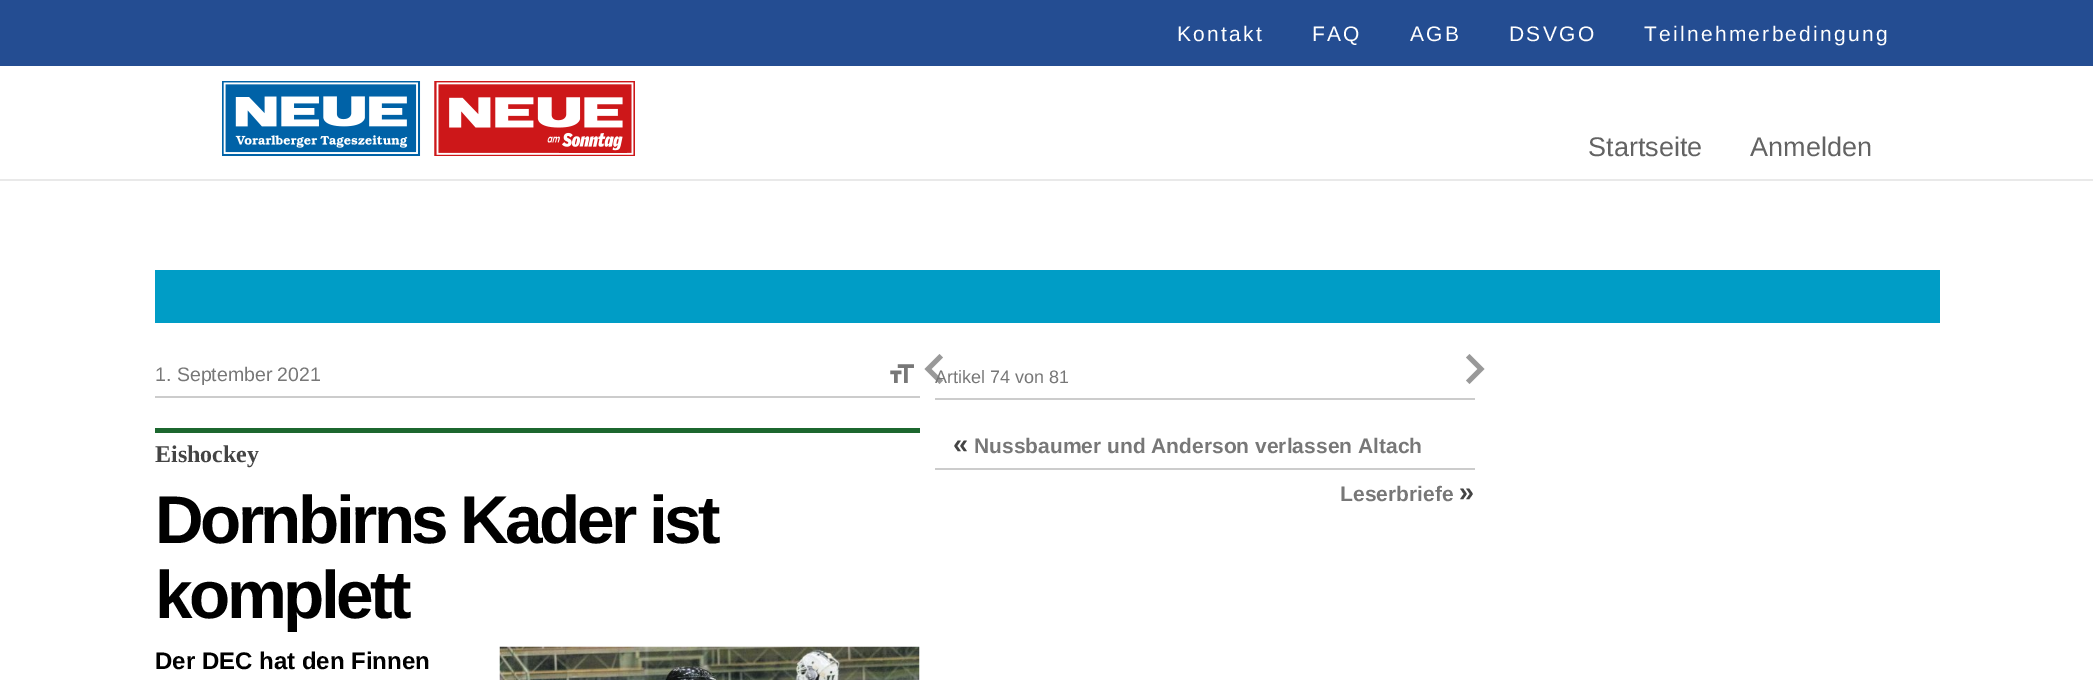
%!PS-Adobe-3.0
%%BoundingBox: 0 0 2093 680
%%LanguageLevel: 3
%%Pages: 1
%%EndComments
%%BeginProlog
/setink { 3 { 255 div 3 1 roll } repeat setrgbcolor } def
/usefont { [ exch dup neg 0 0 3 -1 roll 0 0 ] selectfont } def
/drawtext { setink usefont moveto show } def
/fillbox { setink rectfill } def
/setalpha { dup .setfillconstantalpha .setstrokeconstantalpha } def
/drawimage { 5 dict begin { /h /w /y /x /name } { exch def } forall
  gsave x y translate w h scale
  w h 8 [w 0 0 h 0 0] name (r) file false 3 colorimage grestore end } def
%%EndProlog
%%BeginSetup
<< /PageSize [2093 680] /PageUsesTransparency true >> setpagedevice
%%EndSetup
%%Page: 1 1
0 .pushpdf14devicefilter
0 680 translate 1 -1 scale
4 setmiterlimit
0 0 2093 680 255 255 255 fillbox
0 179 2093 2 233 233 233 fillbox
0 0 2093 66 36 77 146 fillbox
/LiberationSans-Regular 21 usefont
255 255 255 setink
1177 41 moveto 2.25 0 (Kontakt) ashow
1312 41 moveto 2.25 0 (FAQ) ashow
1410 41 moveto 2.25 0 (AGB) ashow
1509 41 moveto 2.25 0 (DSVGO) ashow
1644 41 moveto 2.25 0 (Teilnehmerbedingung) ashow
(assets/img1.rgb) 222 81 413 75 drawimage
(Startseite) 1588 156 /LiberationSans-Regular 27 99 99 99 drawtext
(Anmelden) 1750 156 /LiberationSans-Regular 27 99 99 99 drawtext
155 270 1785 53 0 157 198 fillbox
155 396 765 2 204 204 204 fillbox
(1. September 2021) 155 381 /LiberationSans-Regular 19.5 119 119 119 drawtext
(assets/img2.rgb) 890 364 24 19 drawimage
155 428 765 5 28 103 47 fillbox
(Eishockey) 155 462 /LiberationSerif-Bold 24 68 68 68 drawtext
/LiberationSans-Bold 67.5 usefont
0 0 0 setink
155 543 moveto -3.6 0 (Dornbirns Kader ist) ashow
155 618 moveto -3.6 0 (komplett) ashow
(Der DEC hat den Finnen) 155 669 /LiberationSans-Bold 24 0 0 0 drawtext
(assets/img3.rgb) 499 646 421 34 drawimage
(Artikel 74 von 81) 935 383 /LiberationSans-Regular 18 119 119 119 drawtext
0.75 setalpha
943 380.5 moveto 931.5 369 lineto 943 357.5 lineto 939.5 354 lineto 924.5 369 lineto 939.5 384 lineto closepath fill
1 setalpha
153 153 153 setink
1466 380.5 moveto 1477.5 369 lineto 1466 357.5 lineto 1469.5 354 lineto 1484.5 369 lineto 1469.5 384 lineto closepath fill
935 398 540 2 204 204 204 fillbox
935 468 540 2 204 204 204 fillbox
(«) 953 453 /LiberationSans-Bold 27 68 68 68 drawtext
(Nussbaumer und Anderson verlassen Altach) 974 453 /LiberationSans-Bold 21 119 119 119 drawtext
(Leserbriefe) 1340 501 /LiberationSans-Bold 21 119 119 119 drawtext
(») 1459 501 /LiberationSans-Bold 27 68 68 68 drawtext
.poppdf14devicefilter showpage
%%EOF
